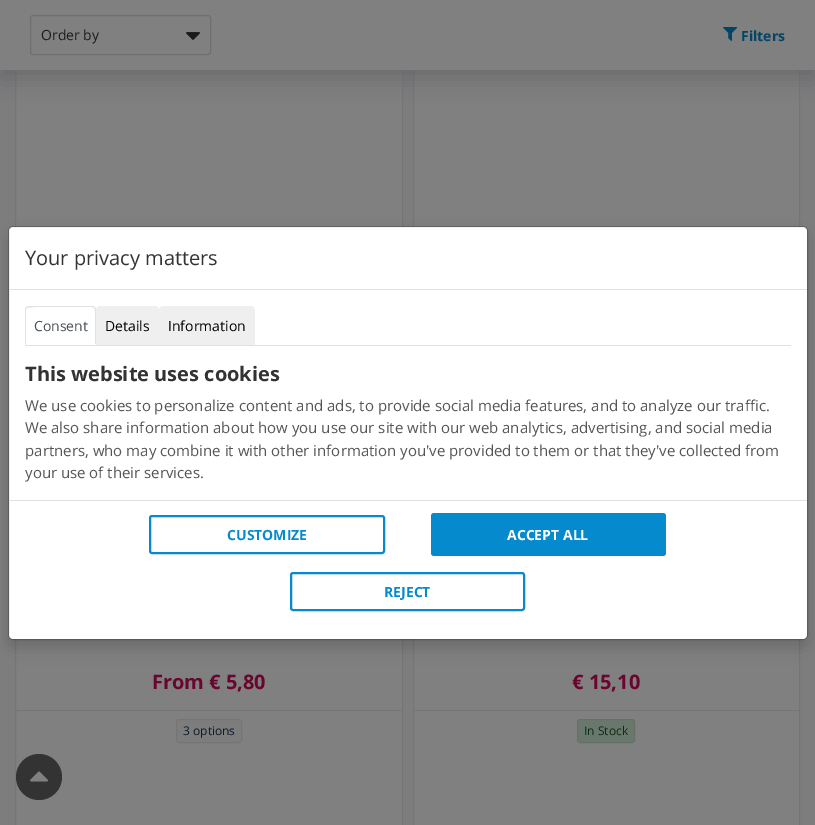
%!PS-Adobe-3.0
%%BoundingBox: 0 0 815 825
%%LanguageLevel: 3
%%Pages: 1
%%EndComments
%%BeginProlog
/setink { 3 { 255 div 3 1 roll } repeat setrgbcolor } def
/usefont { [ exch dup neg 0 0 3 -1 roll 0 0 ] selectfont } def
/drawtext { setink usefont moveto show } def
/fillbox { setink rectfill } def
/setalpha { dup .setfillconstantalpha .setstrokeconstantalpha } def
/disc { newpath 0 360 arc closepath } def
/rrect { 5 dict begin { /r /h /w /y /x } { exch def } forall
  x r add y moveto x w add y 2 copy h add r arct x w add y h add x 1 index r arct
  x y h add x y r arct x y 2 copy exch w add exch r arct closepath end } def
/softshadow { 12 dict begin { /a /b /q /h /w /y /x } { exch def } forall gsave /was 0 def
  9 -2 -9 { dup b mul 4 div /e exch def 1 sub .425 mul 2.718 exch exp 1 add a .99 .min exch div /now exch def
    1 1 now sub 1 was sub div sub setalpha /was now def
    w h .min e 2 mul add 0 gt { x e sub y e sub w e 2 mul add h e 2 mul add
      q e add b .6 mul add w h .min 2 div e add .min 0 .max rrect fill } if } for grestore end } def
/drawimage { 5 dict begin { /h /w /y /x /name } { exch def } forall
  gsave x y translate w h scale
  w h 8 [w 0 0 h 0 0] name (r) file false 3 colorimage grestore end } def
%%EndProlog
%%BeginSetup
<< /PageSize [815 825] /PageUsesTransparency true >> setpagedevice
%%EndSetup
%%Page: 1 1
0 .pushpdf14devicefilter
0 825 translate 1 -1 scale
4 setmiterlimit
0 0 815 825 125 125 125 fillbox
16 70 386 157 128 128 128 fillbox
117 117 117 setink
15.5 -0.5 387 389 rectstroke
414 70 385 157 128 128 128 fillbox
117 117 117 setink
413.5 -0.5 386 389 rectstroke
75 79 83 setink
0 8 815 70 0 12 0.4 softshadow
0 0 815 70 128 128 128 fillbox
111 111 111 setink
30.5 15.5 180 39 2.5 rrect stroke
(Order by) 41 40 /OpenSans-Regular 14 26 26 26 drawtext
(assets/img1.rgb) 186 32 14 8 drawimage
(assets/img2.rgb) 723 27 15 14 drawimage
(Filters) 741 41 /OpenSans-Bold 14 3 69 103 drawtext
16 639 386 186 128 128 128 fillbox
117 117 117 setink
15.5 399.5 387 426 rectstroke
(From € 5,80) 152 689 /OpenSans-Bold 20 106 5 46 drawtext
16 710 386 1 117 117 117 fillbox
125 125 125 setink
176.5 719.5 65 23 2.5 rrect gsave fill grestore
117 117 117 setink
stroke
(3 options) 183 735 /OpenSans-Regular 12 12 25 41 drawtext
414 639 385 186 128 128 128 fillbox
117 117 117 setink
413.5 399.5 386 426 rectstroke
(€ 15,10) 572 689 /OpenSans-Bold 20 106 5 46 drawtext
414 710 385 1 117 117 117 fillbox
106 119 109 setink
577.5 719.5 57 23 2.5 rrect gsave fill grestore
98 115 102 setink
stroke
(In Stock) 584 735 /OpenSans-Regular 12 11 44 18 drawtext
0 0 0 setink
8 234 800 414 5 8 0.15 softshadow
255 255 255 setink
9 227 798 412 4 rrect fill
0.2 setalpha
0 0 0 setink
8.5 226.5 799 413 4.5 rrect stroke
1 setalpha
9 289 798 1 222 226 230 fillbox
(Your privacy matters) 25 265 /OpenSans-Regular 20 51 51 51 drawtext
25 345 766 1 222 226 230 fillbox
29 306 moveto 26 307 lineto 27 308 lineto 29 306 75 307 82 307 curveto 92 307 lineto 94 308 lineto 95 307 lineto 92 306 lineto closepath fill
96 345 moveto 96 310 lineto 96 309 95.5 308 95 307 curveto 94 308 lineto 95 308 95 309 95 310 curveto 95 344 lineto closepath fill
255 255 255 setink
96 345 moveto 95 344 lineto 26 344 lineto 25 345 lineto closepath fill
222 226 230 setink
25 345 moveto 26 344 lineto 26 310 lineto 26 309 26 308 27 308 curveto 26 307 lineto 25.5 308 25 309 25 310 curveto closepath fill
(Consent) 34 331 /OpenSans-Regular 14 73 80 87 drawtext
239 239 239 setink
100 306 moveto 155 306 lineto 157 306 159 308 159 310 curveto 159 345 lineto 96 345 lineto 96 310 lineto 96 308 98 306 100 306 curveto closepath fill
(Details) 105 331 /OpenSans-Regular 14 0 0 0 drawtext
239 239 239 setink
163 306 moveto 251 306 lineto 253 306 255 308 255 310 curveto 255 345 lineto 159 345 lineto 159 310 lineto 159 308 161 306 163 306 curveto closepath fill
(Information) 168 331 /OpenSans-Regular 14 0 0 0 drawtext
(This website uses cookies) 25 381 /OpenSans-Bold 20 51 51 51 drawtext
(We use cookies to personalize content and ads, to provide social media features, and to analyze our traffic.) 25 411 /OpenSans-Regular 15 85 85 85 drawtext
(We also share information about how you use our site with our web analytics, advertising, and social media) 25 433 /OpenSans-Regular 15 85 85 85 drawtext
(partners, who may combine it with other information you've provided to them or that they've collected from) 25 456 /OpenSans-Regular 15 85 85 85 drawtext
(your use of their services.) 25 478 /OpenSans-Regular 15 85 85 85 drawtext
9 500 798 1 222 226 230 fillbox
5 138 205 setink
2 setlinewidth
150 516 234 37 2 rrect stroke
(CUSTOMIZE) 227 540 /OpenSans-Bold 14 5 138 205 drawtext
431 513 235 43 3 rrect fill
(ACCEPT ALL) 507 540 /OpenSans-Bold 14 255 255 255 drawtext
5 138 205 setink
291 573 233 37 2 rrect stroke
(REJECT) 384 597 /OpenSans-Bold 14 5 138 205 drawtext
51 51 51 setink
39 777 23 disc fill
(assets/img3.rgb) 30 771 18 11 drawimage
.poppdf14devicefilter showpage
%%EOF
